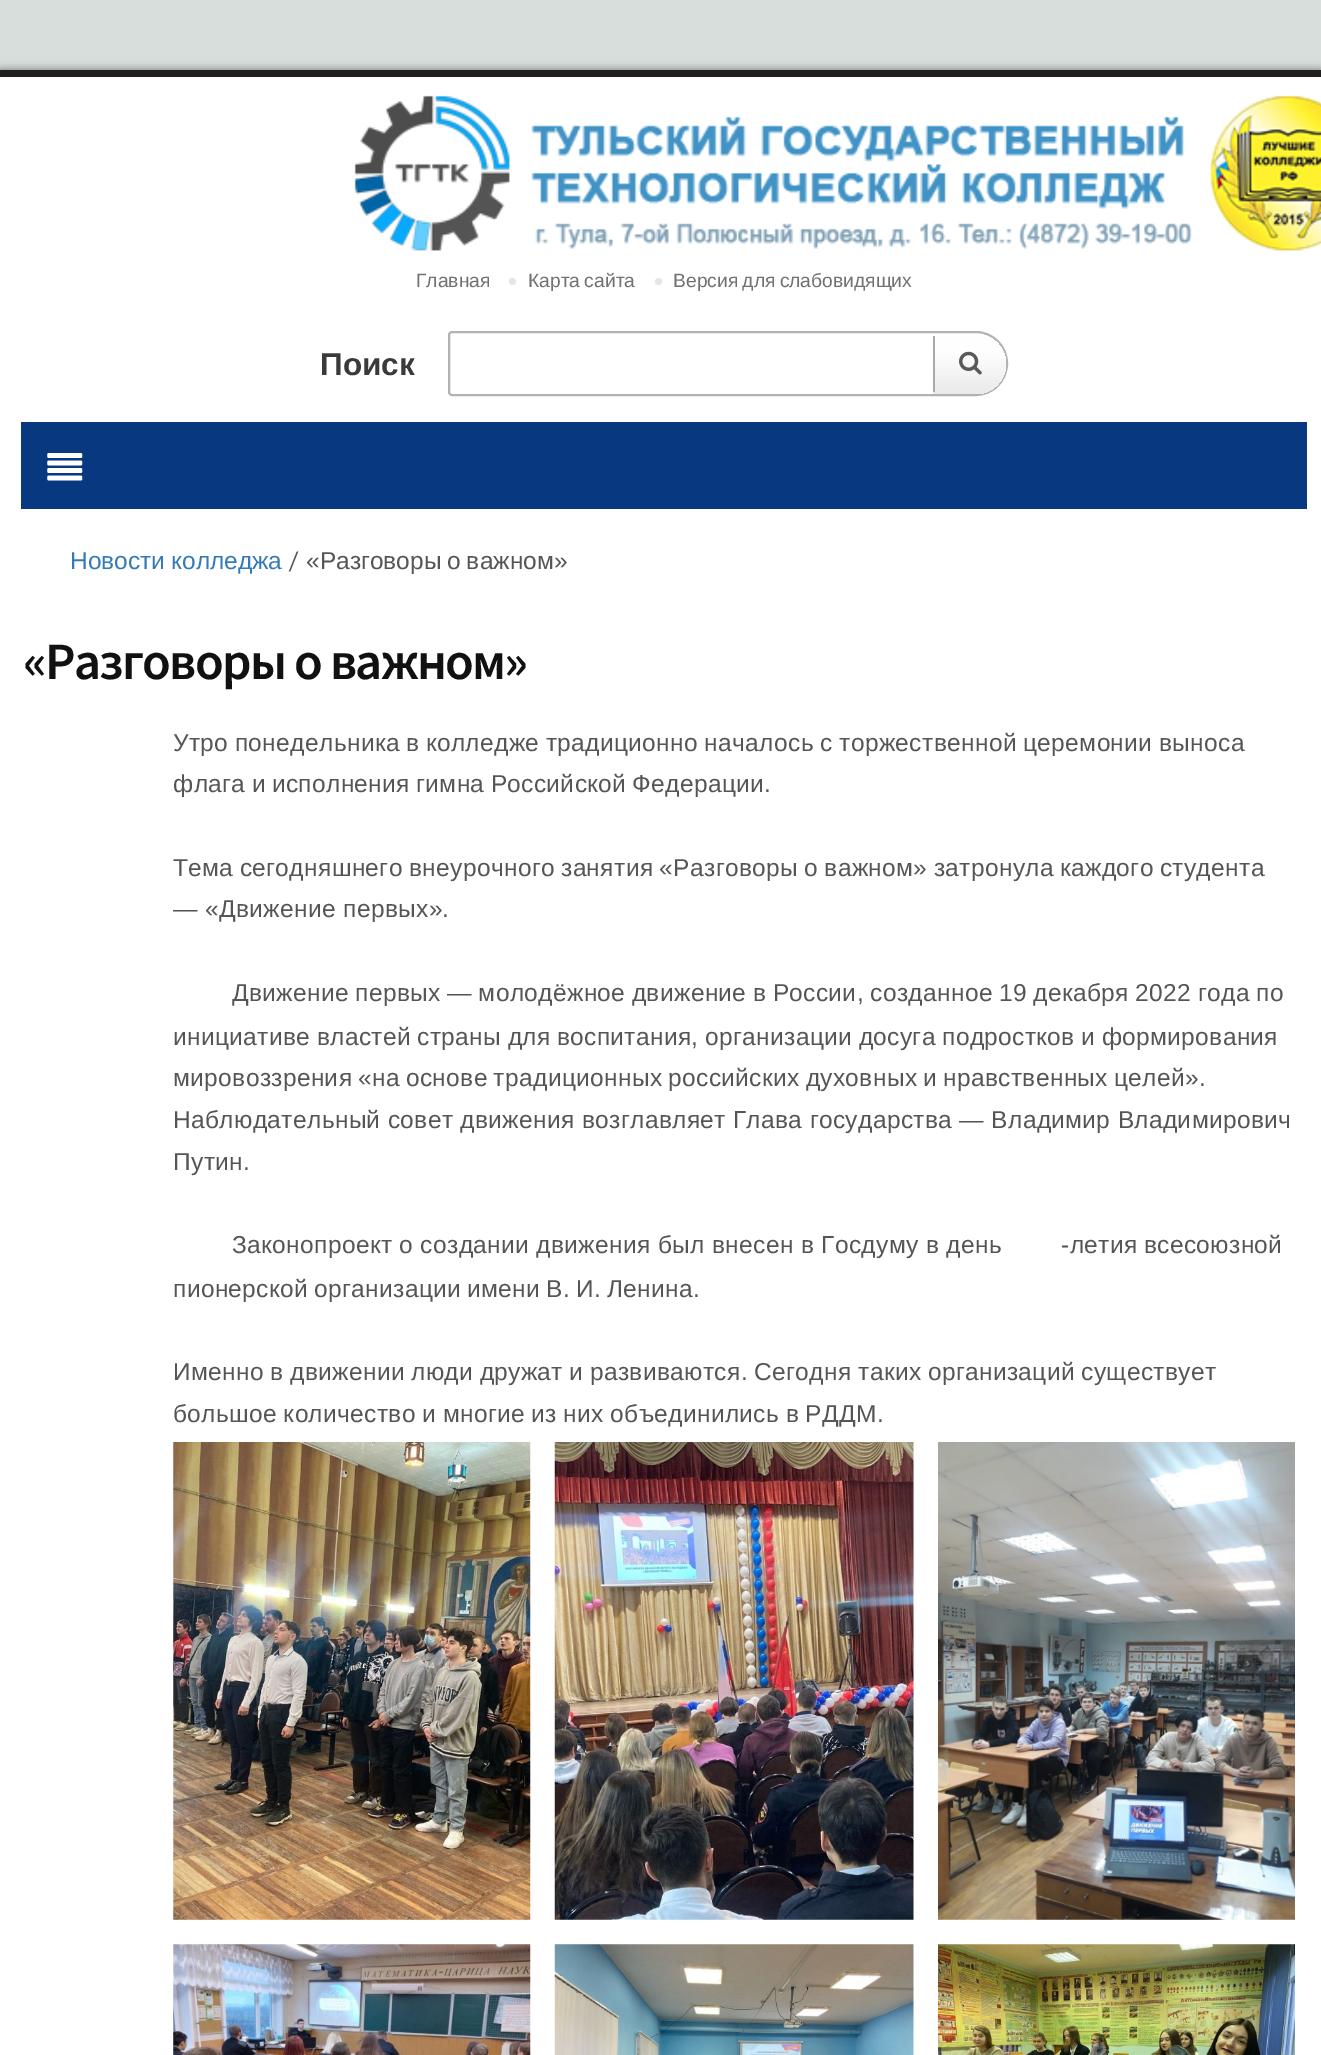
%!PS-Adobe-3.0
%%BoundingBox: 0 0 1321 2055
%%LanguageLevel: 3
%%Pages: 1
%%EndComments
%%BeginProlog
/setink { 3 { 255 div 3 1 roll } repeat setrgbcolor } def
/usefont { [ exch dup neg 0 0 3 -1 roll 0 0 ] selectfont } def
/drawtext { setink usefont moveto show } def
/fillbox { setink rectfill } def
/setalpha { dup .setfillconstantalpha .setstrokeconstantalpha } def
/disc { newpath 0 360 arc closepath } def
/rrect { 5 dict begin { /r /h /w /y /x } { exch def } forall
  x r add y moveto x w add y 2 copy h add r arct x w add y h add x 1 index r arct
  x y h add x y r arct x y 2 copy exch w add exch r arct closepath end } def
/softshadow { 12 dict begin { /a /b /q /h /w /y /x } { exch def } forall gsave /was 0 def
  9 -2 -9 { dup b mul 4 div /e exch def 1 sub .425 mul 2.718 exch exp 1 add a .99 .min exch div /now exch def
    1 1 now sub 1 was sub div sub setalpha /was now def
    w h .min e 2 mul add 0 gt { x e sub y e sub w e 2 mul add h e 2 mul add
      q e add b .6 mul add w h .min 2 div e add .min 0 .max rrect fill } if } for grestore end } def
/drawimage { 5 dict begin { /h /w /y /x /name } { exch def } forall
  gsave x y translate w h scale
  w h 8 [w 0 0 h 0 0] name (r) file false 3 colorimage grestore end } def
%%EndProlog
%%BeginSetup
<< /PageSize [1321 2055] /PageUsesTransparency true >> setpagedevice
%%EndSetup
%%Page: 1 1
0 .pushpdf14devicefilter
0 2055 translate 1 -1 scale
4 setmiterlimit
0 0 1321 2055 215 222 220 fillbox
0 0 0 setink
0 70 1321 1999 0 4.5 0.5 softshadow
0 79 1321 1976 255 255 255 fillbox
0 70 1321 7 31 31 31 fillbox
0 77 1321 2 252 252 252 fillbox
(assets/img1.rgb) 354 95 967 156 drawimage
(Главная) 416 287 /LiberationSans-Regular 19.25 113 113 113 drawtext
229 229 229 setink
512.5 281.5 3.5 disc fill
113 113 113 setink
528 287 moveto -1 0 32 (Карта сайта) widthshow
229 229 229 setink
658.5 281.5 3.5 disc fill
113 113 113 setink
673 287 moveto -1 0 32 (Версия для слабовидящих) widthshow
178 178 178 setink
2 setlinewidth
452 332 moveto 975.5 332 lineto 993 332 1007 346 1007 363.5 curveto 1007 381 993 395 975.5 395 curveto 452 395 lineto 450.5 395 449 393.5 449 392 curveto 449 335 lineto 449 333.5 450.5 332 452 332 curveto closepath stroke
(Поиск) 320 375 /LiberationSans-Bold 31.5 58 58 58 drawtext
gsave 935.5 334 moveto 976 334 lineto 992.5 334 1006 347.5 1006 364 curveto 1006 380.5 992.5 394 976 394 curveto 935.5 394 lineto 934 394 933 393 933 391.5 curveto 933 336.5 lineto 933 335 934 334 935.5 334 curveto closepath clip newpath
<< /ShadingType 2 /ColorSpace /DeviceRGB /Coords [970 334 970 394] /Extend [true true] /Function << /FunctionType 3 /Domain [0 1] /Functions [<< /FunctionType 2 /Domain [0 1] /C0 [0.996 0.996 0.996] /C1 [0.996 0.996 0.996] /N 1 >> << /FunctionType 2 /Domain [0 1] /C0 [0.996 0.996 0.996] /C1 [0.918 0.918 0.918] /N 1 >>] /Bounds [0.29] /Encode [0 1 0 1] >> >> shfill grestore
933 336 2 56 169 169 169 fillbox
(assets/img2.rgb) 959 351 23 24 drawimage
21 422 1286 87 8 56 127 fillbox
(assets/img3.rgb) 47 453 36 28 drawimage
/LiberationSans-Regular 24.5 usefont
51 122 183 setink
70 569 moveto -0.75 0 32 (Новости колледжа) widthshow
(/) 288 569 /Oxygen-Regular 24.5 85 85 85 drawtext
/LiberationSans-Regular 24.5 usefont
306 569 moveto -1 0 32 («Разговоры о важном») widthshow
/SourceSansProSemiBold-SemiBold 52.5 usefont
17 17 17 setink
23 679 moveto -1.75 0 («Разговоры о важном») ashow
/LiberationSans-Regular 24.5 usefont
85 85 85 setink
173 751 moveto -0.75 0 32 0.35 0 (Утро понедельника в колледже традиционно началось с торжественной церемонии выноса) awidthshow
173 792 moveto -1 0 32 0.35 0 (флага и исполнения гимна Российской Федерации.) awidthshow
173 876 moveto -1 0 32 0.35 0 (Тема сегодняшнего внеурочного занятия «Разговоры о важном» затронула каждого студента) awidthshow
173 917 moveto 0.35 0 (— «Движение первых».) ashow
232 1001 moveto -0.75 0 32 0.35 0 (Движение первых — молодёжное движение в России, созданное 19 декабря 2022 года по) awidthshow
173 1045 moveto -0.75 0 32 0.35 0 (инициативе властей страны для воспитания, организации досуга подростков и формирования) awidthshow
173 1086 moveto -1.25 0 32 0.35 0 (мировоззрения «на основе традиционных российских духовных и нравственных целей».) awidthshow
173 1128 moveto 0.35 0 (Наблюдательный совет движения возглавляет Глава государства — Владимир Владимирович) ashow
173 1170 moveto 0.35 0 (Путин.) ashow
232 1253 moveto 0.35 0 (Законопроект о создании движения был внесен в Госдуму в день) ashow
1061 1253 moveto -0.75 0 32 0.35 0 (-летия всесоюзной) awidthshow
173 1297 moveto -1.25 0 32 0.35 0 (пионерской организации имени В. И. Ленина.) awidthshow
173 1380 moveto -0.75 0 32 0.35 0 (Именно в движении люди дружат и развиваются. Сегодня таких организаций существует) awidthshow
173 1422 moveto -0.75 0 32 0.35 0 (большое количество и многие из них объединились в РДДМ.) awidthshow
(assets/img4.rgb) 173 1442 358 478 drawimage
(assets/img5.rgb) 554 1442 360 478 drawimage
(assets/img6.rgb) 938 1442 357 478 drawimage
(assets/img7.rgb) 173 1944 358 111 drawimage
(assets/img8.rgb) 554 1944 360 111 drawimage
(assets/img9.rgb) 938 1944 357 111 drawimage
.poppdf14devicefilter showpage
%%EOF
